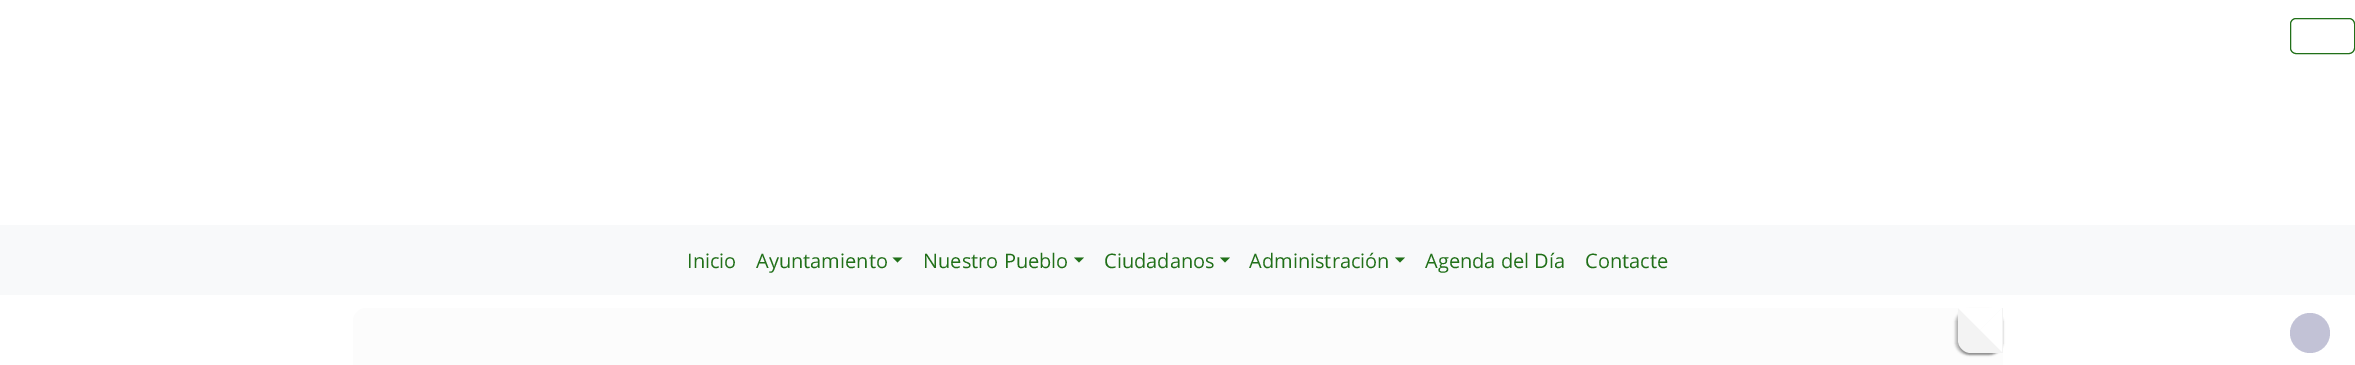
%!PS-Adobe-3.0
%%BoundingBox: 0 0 2355 365
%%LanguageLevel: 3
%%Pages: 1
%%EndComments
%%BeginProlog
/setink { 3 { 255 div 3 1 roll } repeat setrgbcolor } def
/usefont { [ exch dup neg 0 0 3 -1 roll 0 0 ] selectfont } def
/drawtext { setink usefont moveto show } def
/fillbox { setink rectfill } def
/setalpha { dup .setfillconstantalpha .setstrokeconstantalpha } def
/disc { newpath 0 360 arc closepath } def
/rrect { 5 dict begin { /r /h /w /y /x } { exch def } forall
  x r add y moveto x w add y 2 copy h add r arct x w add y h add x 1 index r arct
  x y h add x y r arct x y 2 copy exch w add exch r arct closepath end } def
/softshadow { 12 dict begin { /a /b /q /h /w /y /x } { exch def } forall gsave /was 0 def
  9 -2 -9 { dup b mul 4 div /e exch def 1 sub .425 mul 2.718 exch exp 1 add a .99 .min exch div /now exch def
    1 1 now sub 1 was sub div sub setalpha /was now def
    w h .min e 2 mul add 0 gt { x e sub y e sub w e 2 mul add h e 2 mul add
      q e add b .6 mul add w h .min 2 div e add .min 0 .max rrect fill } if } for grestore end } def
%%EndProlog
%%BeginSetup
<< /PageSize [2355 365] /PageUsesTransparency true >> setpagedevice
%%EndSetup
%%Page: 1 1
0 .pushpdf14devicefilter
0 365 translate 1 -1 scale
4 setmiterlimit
0 0 2355 365 255 255 255 fillbox
33 112 25 setink
2290.5 18.5 64 35 5.5 rrect stroke
0 225 2355 70 248 249 250 fillbox
(Inicio) 687 268 /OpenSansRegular-Regular 20 33 112 25 drawtext
(Ayuntamiento) 756 268 /OpenSansRegular-Regular 20 33 112 25 drawtext
892.5 257.5 moveto 902.5 257.5 lineto 897.5 262.5 lineto closepath fill
(Nuestro Pueblo) 923 268 /OpenSansRegular-Regular 20 33 112 25 drawtext
1074 257.5 moveto 1084 257.5 lineto 1079 262.5 lineto closepath fill
(Ciudadanos) 1104 268 /OpenSansRegular-Regular 20 33 112 25 drawtext
1220 257.5 moveto 1230 257.5 lineto 1225 262.5 lineto closepath fill
(Administración) 1249 268 /OpenSansRegular-Regular 20 33 112 25 drawtext
1395 257.5 moveto 1405 257.5 lineto 1400 262.5 lineto closepath fill
(Agenda del Día) 1425 268 /OpenSansRegular-Regular 20 33 112 25 drawtext
(Contacte) 1585 268 /OpenSansRegular-Regular 20 33 112 25 drawtext
252 252 252 setink
366 308 moveto 2003 308 lineto 2003 365 lineto 2003 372 1997 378 1990 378 curveto 366 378 lineto 359 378 353 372 353 365 curveto 353 321 lineto 353 314 359 308 366 308 curveto closepath fill
0 0 0 setink
1955 310 45 45 13 1 0.2 softshadow
1958 310 45 45 13 1 0.3 softshadow
243 243 243 setink
1958 308 moveto 2003 308 lineto 2003 353 lineto 1971 353 lineto 1964 353 1958 347 1958 340 curveto closepath fill
255 255 255 setink
1958 308 moveto 1980 330 lineto 2002 308 lineto closepath fill
2002 352 moveto 2002 308 lineto 1980 330 lineto closepath fill
194 194 214 setink
2310 333 20 disc fill
.poppdf14devicefilter showpage
%%EOF
